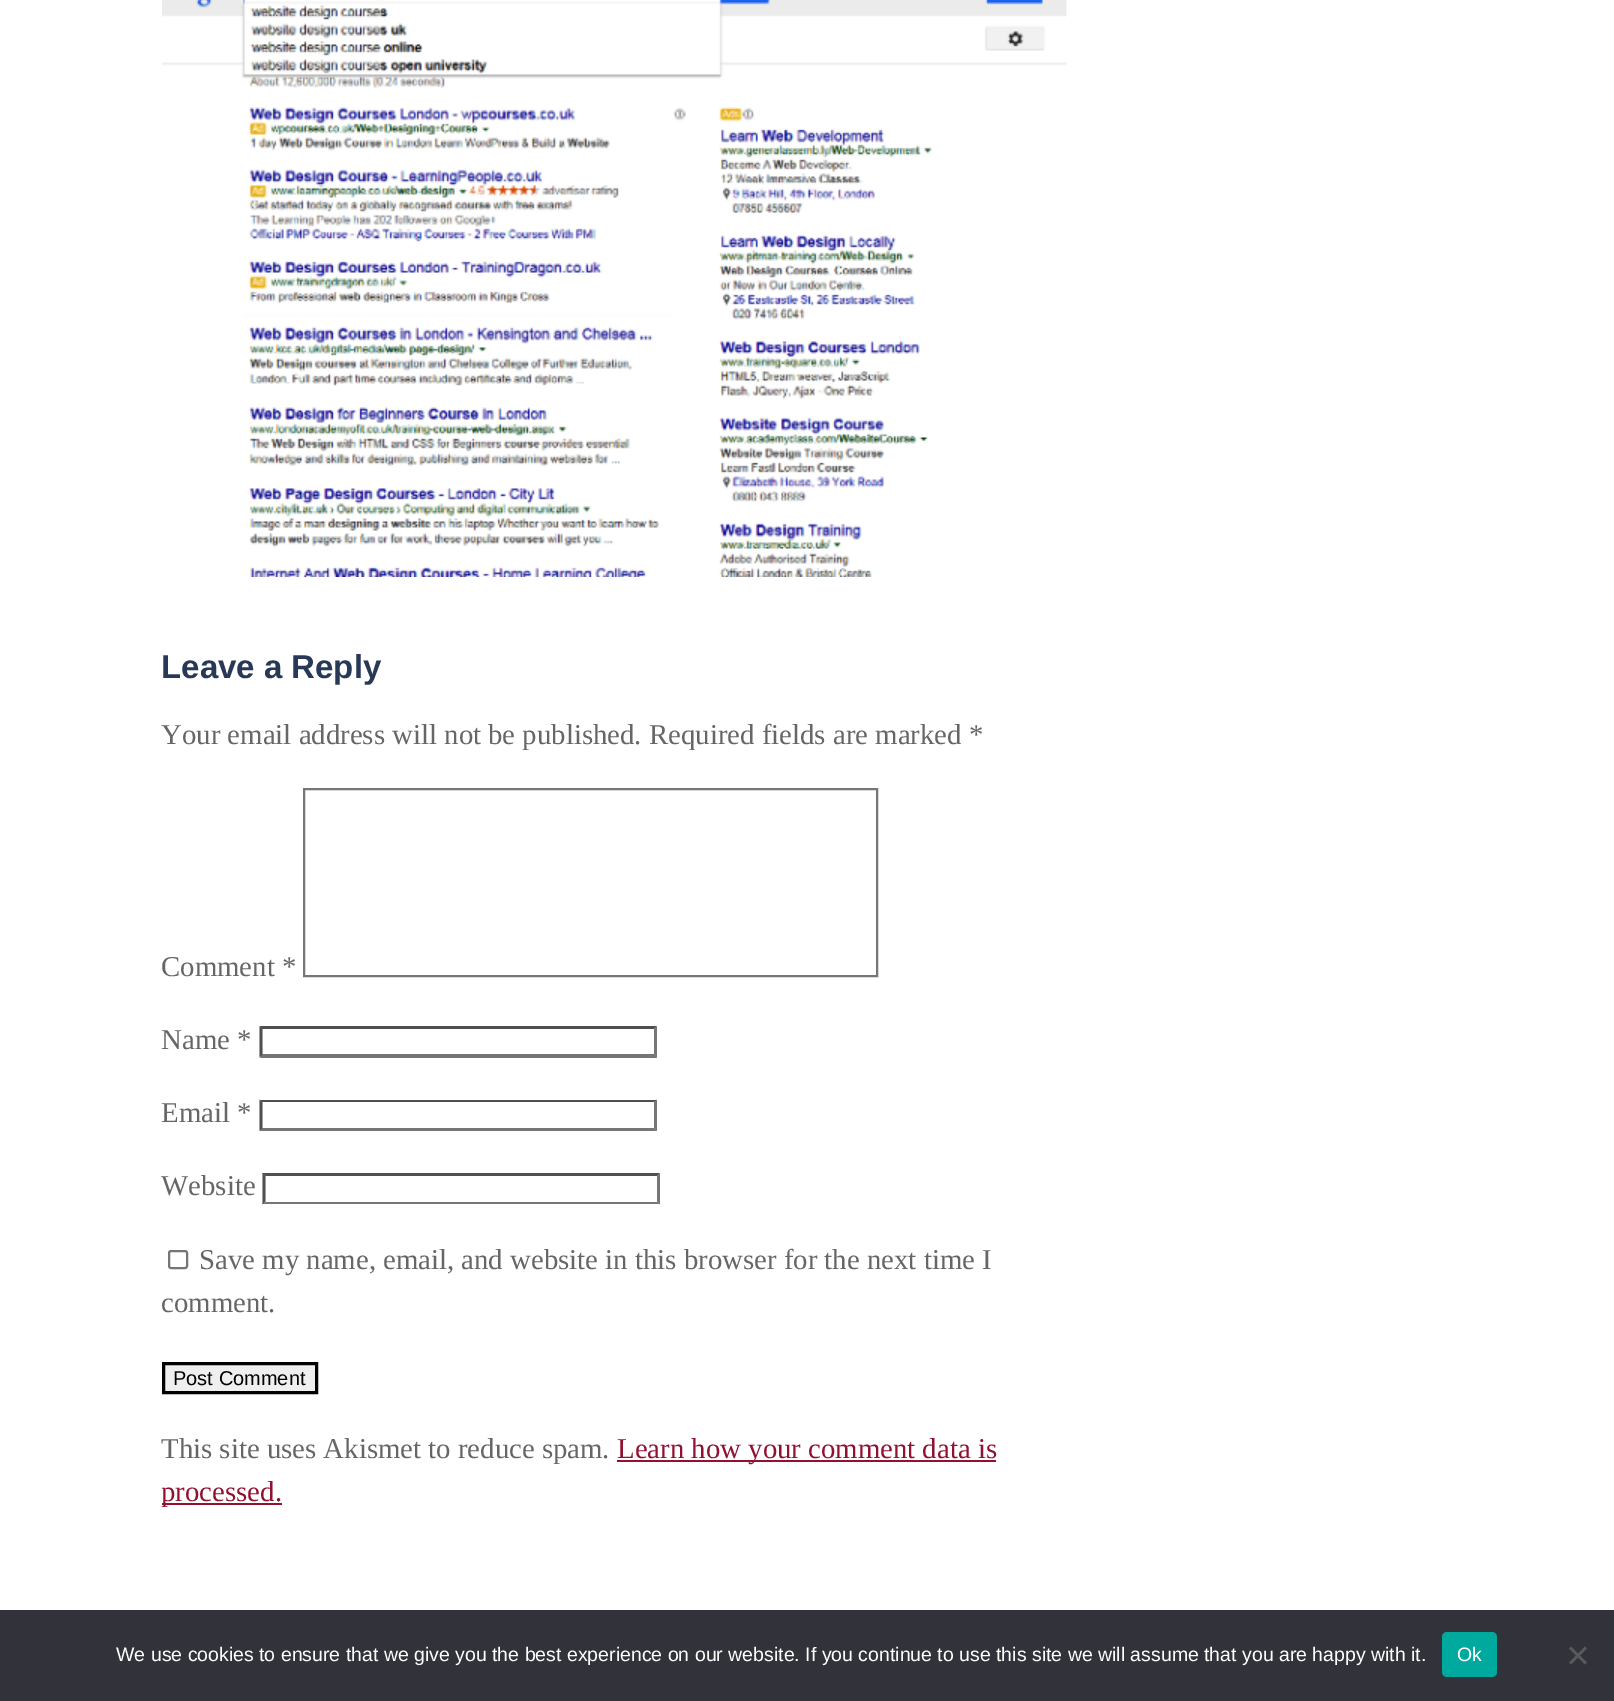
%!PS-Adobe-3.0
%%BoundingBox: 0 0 1614 1701
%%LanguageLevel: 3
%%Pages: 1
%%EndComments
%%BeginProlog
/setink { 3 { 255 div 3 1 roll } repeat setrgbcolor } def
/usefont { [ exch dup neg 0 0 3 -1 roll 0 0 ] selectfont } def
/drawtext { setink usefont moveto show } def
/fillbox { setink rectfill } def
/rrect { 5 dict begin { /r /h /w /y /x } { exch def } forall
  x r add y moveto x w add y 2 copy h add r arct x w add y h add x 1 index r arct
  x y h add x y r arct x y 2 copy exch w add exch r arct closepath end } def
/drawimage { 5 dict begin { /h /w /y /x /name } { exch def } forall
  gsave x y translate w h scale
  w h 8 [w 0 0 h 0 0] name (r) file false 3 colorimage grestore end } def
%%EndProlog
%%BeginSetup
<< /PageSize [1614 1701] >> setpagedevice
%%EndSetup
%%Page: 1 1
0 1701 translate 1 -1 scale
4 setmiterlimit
0 0 1614 1701 255 255 255 fillbox
(assets/img1.rgb) 162 0 905 577 drawimage
(Leave a Reply) 161 678 /LiberationSans-Bold 33 39 57 87 drawtext
(Your email address will not be published. Required fields are marked *) 161 744 /LiberationSerif-Regular 28.8 102 102 102 drawtext
(Comment *) 161 976 /LiberationSerif-Regular 28.8 102 102 102 drawtext
118 118 118 setink
2 setlinewidth
304 789 573 187 rectstroke
(Name *) 161 1049 /LiberationSerif-Regular 28.8 102 102 102 drawtext
79 79 79 setink
260 1026 moveto 657 1026 lineto 654 1029 lineto 262 1029 lineto closepath fill
118 118 118 setink
657 1026 moveto 657 1057.5 lineto 654 1054.5 lineto 654 1029 lineto closepath fill
657 1058 moveto 260 1058 lineto 262 1054 lineto 654 1054 lineto closepath fill
79 79 79 setink
259.5 1057.5 moveto 259.5 1026 lineto 262.5 1029 lineto 262.5 1054.5 lineto closepath fill
(Email *) 161 1122 /LiberationSerif-Regular 28.8 102 102 102 drawtext
79 79 79 setink
260 1100 moveto 657 1100 lineto 654 1102 lineto 262 1102 lineto closepath fill
118 118 118 setink
657 1099.5 moveto 657 1131 lineto 654 1128 lineto 654 1102.5 lineto closepath fill
657 1131 moveto 260 1131 lineto 262 1128 lineto 654 1128 lineto closepath fill
79 79 79 setink
259.5 1131 moveto 259.5 1099.5 lineto 262.5 1102.5 lineto 262.5 1128 lineto closepath fill
(Website) 161 1195 /LiberationSerif-Regular 28.8 102 102 102 drawtext
79 79 79 setink
262 1173 moveto 660 1173 lineto 657 1176 lineto 266 1176 lineto closepath fill
118 118 118 setink
660 1173 moveto 660 1204.5 lineto 657 1201.5 lineto 657 1176 lineto closepath fill
660 1204 moveto 262 1204 lineto 266 1202 lineto 657 1202 lineto closepath fill
79 79 79 setink
262.5 1204.5 moveto 262.5 1173 lineto 265.5 1176 lineto 265.5 1201.5 lineto closepath fill
118 118 118 setink
169 1251 18 17 2 rrect stroke
(Save my name, email, and website in this browser for the next time I) 199 1269 /LiberationSerif-Regular 28.8 102 102 102 drawtext
(comment.) 161 1312 /LiberationSerif-Regular 28.8 102 102 102 drawtext
239 239 239 setink
163.5 1363.5 moveto 316.5 1363.5 lineto 316.5 1392.5 lineto 163.5 1392.5 lineto closepath gsave fill grestore
0 0 0 setink
3 setlinewidth
stroke
(Post Comment) 173 1385 /LiberationSans-Regular 20 0 0 0 drawtext
(This site uses Akismet to reduce spam.) 161 1458 /LiberationSerif-Regular 28.8 102 102 102 drawtext
617 1460 379 2 145 17 49 fillbox
(Learn how your comment data is) 617 1458 /LiberationSerif-Regular 28.8 145 17 49 drawtext
162 1503 120 2 145 17 49 fillbox
(processed.) 161 1501 /LiberationSerif-Regular 28.8 145 17 49 drawtext
0 1610 1614 91 50 50 58 fillbox
(We use cookies to ensure that we give you the best experience on our website. If you continue to use this site we will assume that you are happy with it.) 116 1661 /LiberationSans-Regular 19.5 255 255 255 drawtext
0 169 157 setink
1442 1632 55 45 5 rrect fill
(Ok) 1457 1661 /LiberationSans-Regular 19.5 255 255 255 drawtext
89 89 93 setink
1585 1646.5 moveto 1587 1648.5 lineto 1571 1664.5 lineto 1569 1662.5 lineto closepath fill
1569 1648.5 moveto 1571 1646.5 lineto 1587 1662.5 lineto 1585 1664.5 lineto closepath fill
showpage
%%EOF
